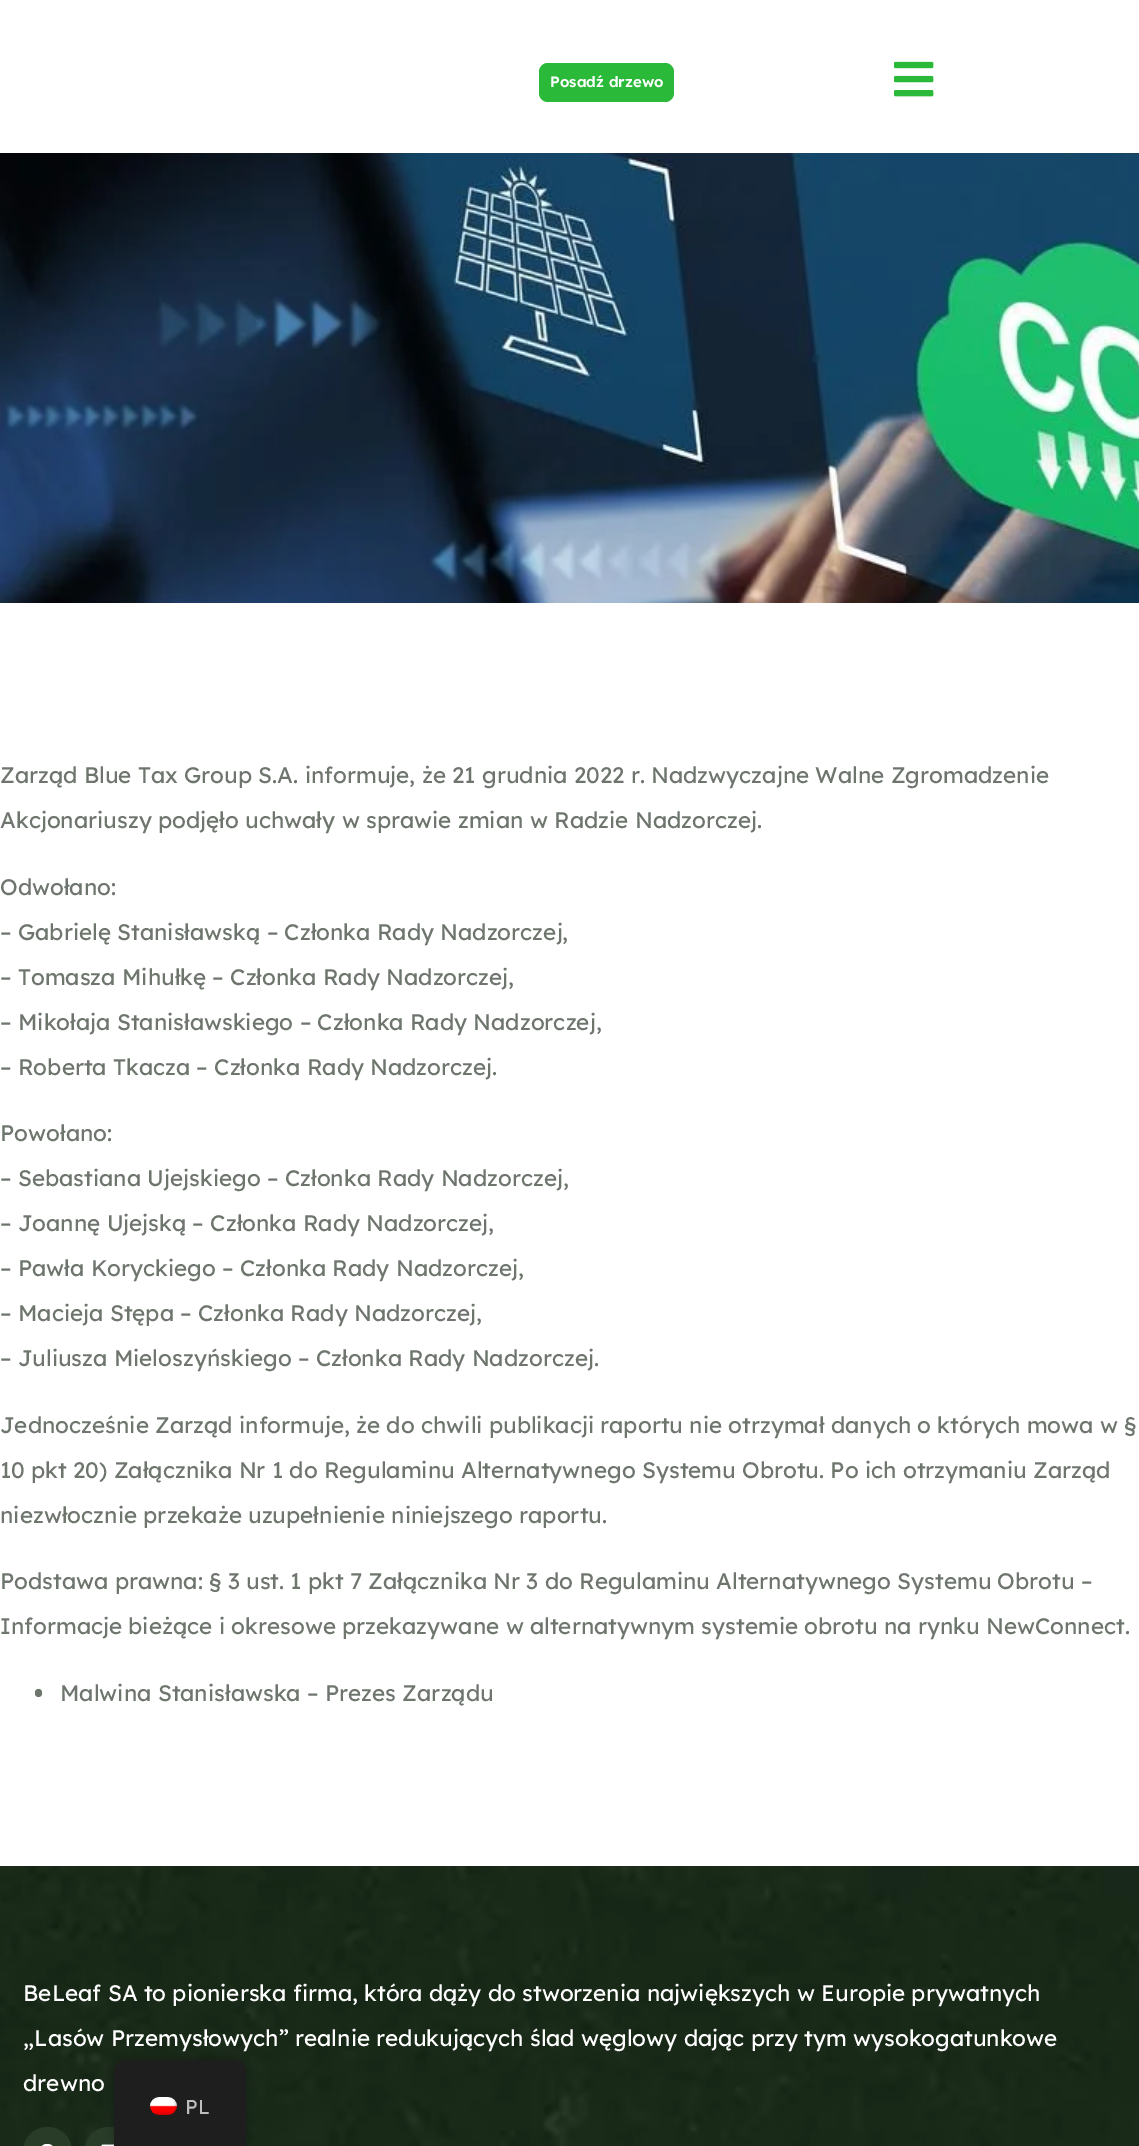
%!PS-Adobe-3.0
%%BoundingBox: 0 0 1139 2146
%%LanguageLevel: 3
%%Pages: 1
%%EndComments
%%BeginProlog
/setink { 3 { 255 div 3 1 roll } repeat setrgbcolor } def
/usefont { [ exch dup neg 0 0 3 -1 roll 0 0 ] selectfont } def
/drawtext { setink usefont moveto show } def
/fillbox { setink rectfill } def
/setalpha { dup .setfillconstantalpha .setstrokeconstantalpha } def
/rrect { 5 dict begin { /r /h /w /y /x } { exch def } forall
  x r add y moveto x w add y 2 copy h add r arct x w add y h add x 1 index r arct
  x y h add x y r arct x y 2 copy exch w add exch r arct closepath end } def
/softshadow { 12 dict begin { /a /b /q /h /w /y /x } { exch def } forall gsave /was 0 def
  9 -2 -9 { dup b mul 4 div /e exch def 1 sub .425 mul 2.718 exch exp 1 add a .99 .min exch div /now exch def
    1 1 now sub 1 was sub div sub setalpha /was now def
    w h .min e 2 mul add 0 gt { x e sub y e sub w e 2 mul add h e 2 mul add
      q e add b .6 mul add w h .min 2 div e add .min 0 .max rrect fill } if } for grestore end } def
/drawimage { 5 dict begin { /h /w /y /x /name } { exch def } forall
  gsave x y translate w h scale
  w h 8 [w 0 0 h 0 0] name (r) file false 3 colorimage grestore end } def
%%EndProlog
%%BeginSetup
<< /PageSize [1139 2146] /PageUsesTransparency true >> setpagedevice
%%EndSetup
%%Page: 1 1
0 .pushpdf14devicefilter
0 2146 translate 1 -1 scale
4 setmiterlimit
0 0 1139 2146 255 255 255 fillbox
42 185 57 setink
539 63 135 39 9 rrect fill
(Posadź drzewo) 550 87 /Lexend-SemiBold 15 255 255 255 drawtext
(assets/img1.rgb) 894 61 40 36 drawimage
(assets/img2.rgb) 0 153 1139 450 drawimage
(Zarząd Blue Tax Group S.A. informuje, że 21 grudnia 2022 r. Nadzwyczajne Walne Zgromadzenie) 0 783 /Lexend-Regular 22.5 109 117 109 drawtext
(Akcjonariuszy podjęło uchwały w sprawie zmian w Radzie Nadzorczej.) 0 828 /Lexend-Regular 22.5 109 117 109 drawtext
(Odwołano:) 0 895 /Lexend-Regular 22.5 109 117 109 drawtext
(– Gabrielę Stanisławską – Członka Rady Nadzorczej,) 0 940 /Lexend-Regular 22.5 109 117 109 drawtext
(– Tomasza Mihułkę – Członka Rady Nadzorczej,) 0 985 /Lexend-Regular 22.5 109 117 109 drawtext
(– Mikołaja Stanisławskiego – Członka Rady Nadzorczej,) 0 1030 /Lexend-Regular 22.5 109 117 109 drawtext
(– Roberta Tkacza – Członka Rady Nadzorczej.) 0 1075 /Lexend-Regular 22.5 109 117 109 drawtext
(Powołano:) 0 1141 /Lexend-Regular 22.5 109 117 109 drawtext
(– Sebastiana Ujejskiego – Członka Rady Nadzorczej,) 0 1186 /Lexend-Regular 22.5 109 117 109 drawtext
(– Joannę Ujejską – Członka Rady Nadzorczej,) 0 1231 /Lexend-Regular 22.5 109 117 109 drawtext
(– Pawła Koryckiego – Członka Rady Nadzorczej,) 0 1276 /Lexend-Regular 22.5 109 117 109 drawtext
(– Macieja Stępa – Członka Rady Nadzorczej,) 0 1321 /Lexend-Regular 22.5 109 117 109 drawtext
(– Juliusza Mieloszyńskiego – Członka Rady Nadzorczej.) 0 1366 /Lexend-Regular 22.5 109 117 109 drawtext
(Jednocześnie Zarząd informuje, że do chwili publikacji raportu nie otrzymał danych o których mowa w §) 0 1433 /Lexend-Regular 22.5 109 117 109 drawtext
(10 pkt 20\) Załącznika Nr 1 do Regulaminu Alternatywnego Systemu Obrotu. Po ich otrzymaniu Zarząd) 0 1478 /Lexend-Regular 22.5 109 117 109 drawtext
(niezwłocznie przekaże uzupełnienie niniejszego raportu.) 0 1523 /Lexend-Regular 22.5 109 117 109 drawtext
(Podstawa prawna: § 3 ust. 1 pkt 7 Załącznika Nr 3 do Regulaminu Alternatywnego Systemu Obrotu –) 0 1589 /Lexend-Regular 22.5 109 117 109 drawtext
(Informacje bieżące i okresowe przekazywane w alternatywnym systemie obrotu na rynku NewConnect.) 0 1634 /Lexend-Regular 22.5 109 117 109 drawtext
35 1689 7 8 3.5 rrect fill
(Malwina Stanisławska – Prezes Zarządu) 60 1701 /Lexend-Regular 22.5 109 117 109 drawtext
(assets/img3.rgb) 0 1866 1139 280 drawimage
(BeLeaf SA to pionierska firma, która dąży do stworzenia największych w Europie prywatnych) 23 2001 /Lexend-Regular 22.5 255 255 255 drawtext
(„Lasów Przemysłowych” realnie redukujących ślad węglowy dając przy tym wysokogatunkowe) 23 2046 /Lexend-Regular 22.5 255 255 255 drawtext
(drewno) 23 2091 /Lexend-Regular 22.5 255 255 255 drawtext
40 60 40 setink
23 2127 49 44 24.5 rrect fill
(assets/img4.rgb) 41 2144 12 2 drawimage
84 2127 50 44 25 rrect fill
(assets/img5.rgb) 101 2144 13 2 drawimage
0 0 0 setink
114 2060 132 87 12 6 0.25 softshadow
30 30 30 setink
126 2060 moveto 234 2060 lineto 240.5 2060 246 2065.5 246 2072 curveto 246 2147 lineto 114 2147 lineto 114 2072 lineto 114 2065.5 119.5 2060 126 2060 curveto closepath fill
(assets/img6.rgb) 150 2097 27 18 drawimage
(PL) 185 2114 /Lexend-Regular 20 189 189 189 drawtext
.poppdf14devicefilter showpage
%%EOF
